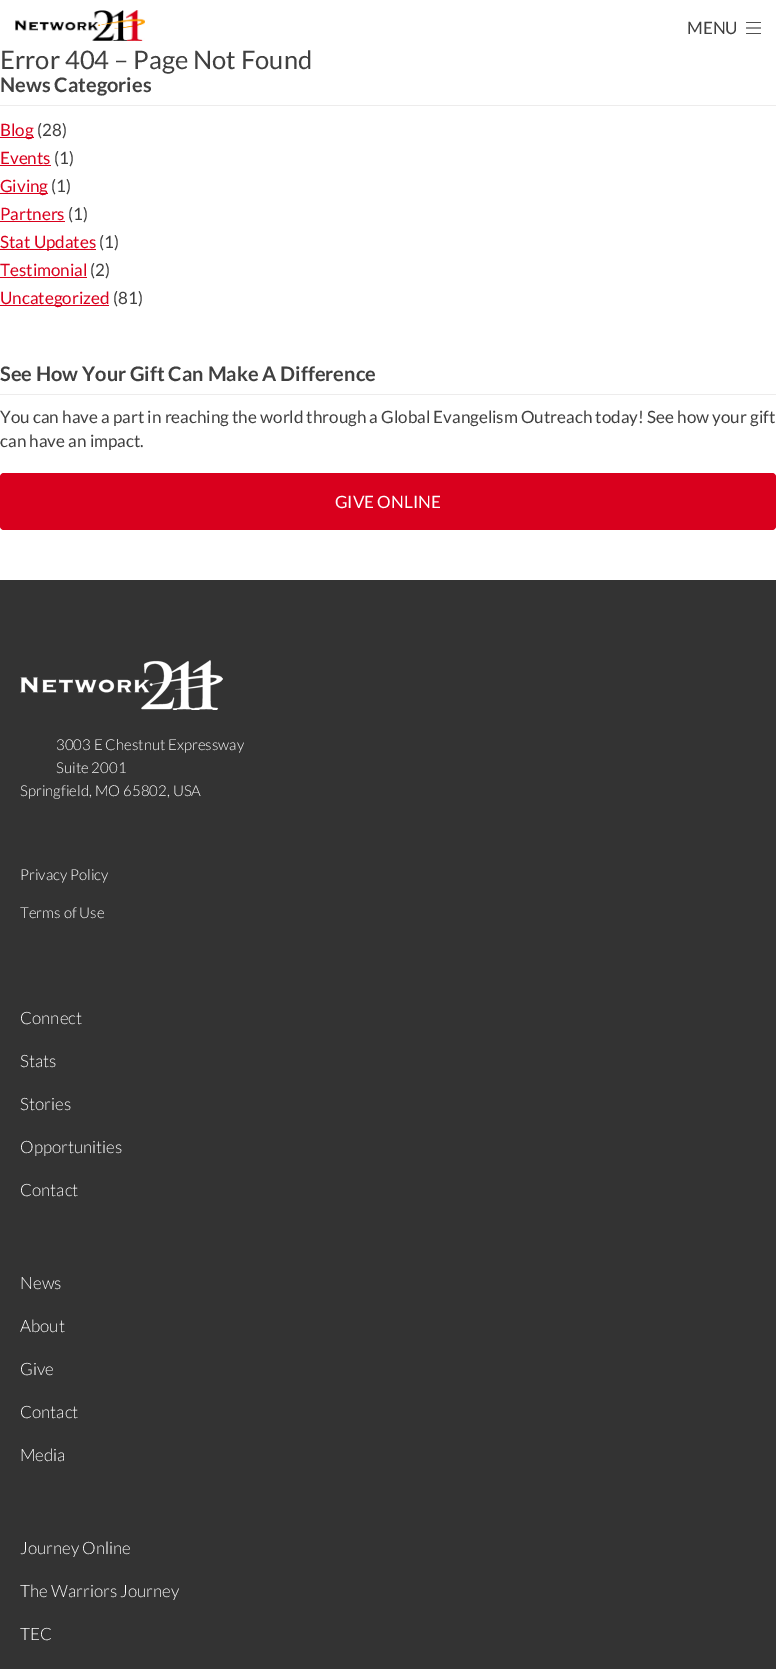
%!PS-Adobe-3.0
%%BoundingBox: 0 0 776 1669
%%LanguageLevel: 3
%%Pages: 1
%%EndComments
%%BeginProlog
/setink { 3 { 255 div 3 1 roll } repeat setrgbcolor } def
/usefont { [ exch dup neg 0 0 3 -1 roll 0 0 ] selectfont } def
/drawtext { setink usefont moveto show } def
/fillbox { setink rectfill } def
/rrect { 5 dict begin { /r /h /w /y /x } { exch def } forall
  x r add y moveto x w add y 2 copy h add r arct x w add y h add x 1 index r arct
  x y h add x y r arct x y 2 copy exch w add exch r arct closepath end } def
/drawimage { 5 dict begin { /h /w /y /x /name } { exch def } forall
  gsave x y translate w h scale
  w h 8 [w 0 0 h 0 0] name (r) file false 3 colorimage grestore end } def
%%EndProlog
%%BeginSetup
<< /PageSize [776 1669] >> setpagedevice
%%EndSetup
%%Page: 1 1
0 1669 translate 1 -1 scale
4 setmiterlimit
0 0 776 1669 255 255 255 fillbox
(assets/img1.rgb) 15 10 130 31 drawimage
(MENU) 687 34 /Lato-Regular 17 64 64 64 drawtext
(assets/img2.rgb) 746 22 15 12 drawimage
(Error 404 – Page Not Found) 0 69 /Lato-Regular 25.5 64 64 64 drawtext
0 105 776 1 237 236 236 fillbox
(News Categories) 0 92 /Lato-Bold 20 64 64 64 drawtext
0 137 34 1 217 0 29 fillbox
(Blog) 0 136 /Lato-Regular 17 217 0 29 drawtext
(\(28\)) 37 136 /Lato-Regular 17 64 64 64 drawtext
(Events) 0 164 /Lato-Regular 17 217 0 29 drawtext
0 165 51 1 217 0 29 fillbox
(\(1\)) 54 164 /Lato-Regular 17 64 64 64 drawtext
0 193 48 1 217 0 29 fillbox
(Giving) 0 192 /Lato-Regular 17 217 0 29 drawtext
(\(1\)) 51 192 /Lato-Regular 17 64 64 64 drawtext
(Partners) 0 220 /Lato-Regular 17 217 0 29 drawtext
0 221 65 1 217 0 29 fillbox
(\(1\)) 68 220 /Lato-Regular 17 64 64 64 drawtext
0 249 96 1 217 0 29 fillbox
(Stat Updates) 0 248 /Lato-Regular 17 217 0 29 drawtext
(\(1\)) 99 248 /Lato-Regular 17 64 64 64 drawtext
(Testimonial) 0 276 /Lato-Regular 17 217 0 29 drawtext
0 277 87 1 217 0 29 fillbox
(\(2\)) 90 276 /Lato-Regular 17 64 64 64 drawtext
0 305 109 1 217 0 29 fillbox
(Uncategorized) 0 304 /Lato-Regular 17 217 0 29 drawtext
(\(81\)) 113 304 /Lato-Regular 17 64 64 64 drawtext
0 394 776 1 237 236 236 fillbox
(See How Your Gift Can Make A Difference) 0 381 /Lato-Bold 20 64 64 64 drawtext
(You can have a part in reaching the world through a Global Evangelism Outreach today! See how your gift) 0 423 /Lato-Regular 17 64 64 64 drawtext
(can have an impact.) 0 447 /Lato-Regular 17 64 64 64 drawtext
217 0 29 setink
0 473 776 57 4 rrect fill
(GIVE ONLINE) 335 508 /Lato-Regular 17 255 255 255 drawtext
0 580 776 1089 51 51 51 fillbox
(assets/img3.rgb) 20 660 203 50 drawimage
(3003 E Chestnut Expressway) 56 750 /Lato-Light 15 255 255 255 drawtext
(Suite 2001) 56 773 /Lato-Light 15 255 255 255 drawtext
(Springfield, MO 65802, USA) 20 796 /Lato-Light 15 255 255 255 drawtext
(Privacy Policy) 20 880 /Lato-Light 15 255 255 255 drawtext
(Terms of Use) 20 918 /Lato-Light 15 255 255 255 drawtext
(Connect) 20 1024 /Lato-Light 17 255 255 255 drawtext
(Stats) 20 1067 /Lato-Light 17 255 255 255 drawtext
(Stories) 20 1110 /Lato-Light 17 255 255 255 drawtext
(Opportunities) 20 1153 /Lato-Light 17 255 255 255 drawtext
(Contact) 20 1196 /Lato-Light 17 255 255 255 drawtext
(News) 20 1289 /Lato-Light 17 255 255 255 drawtext
(About) 20 1332 /Lato-Light 17 255 255 255 drawtext
(Give) 20 1375 /Lato-Light 17 255 255 255 drawtext
(Contact) 20 1418 /Lato-Light 17 255 255 255 drawtext
(Media) 20 1461 /Lato-Light 17 255 255 255 drawtext
(Journey Online) 20 1554 /Lato-Light 17 255 255 255 drawtext
(The Warriors Journey) 20 1597 /Lato-Light 17 255 255 255 drawtext
(TEC) 20 1640 /Lato-Light 17 255 255 255 drawtext
showpage
%%EOF
